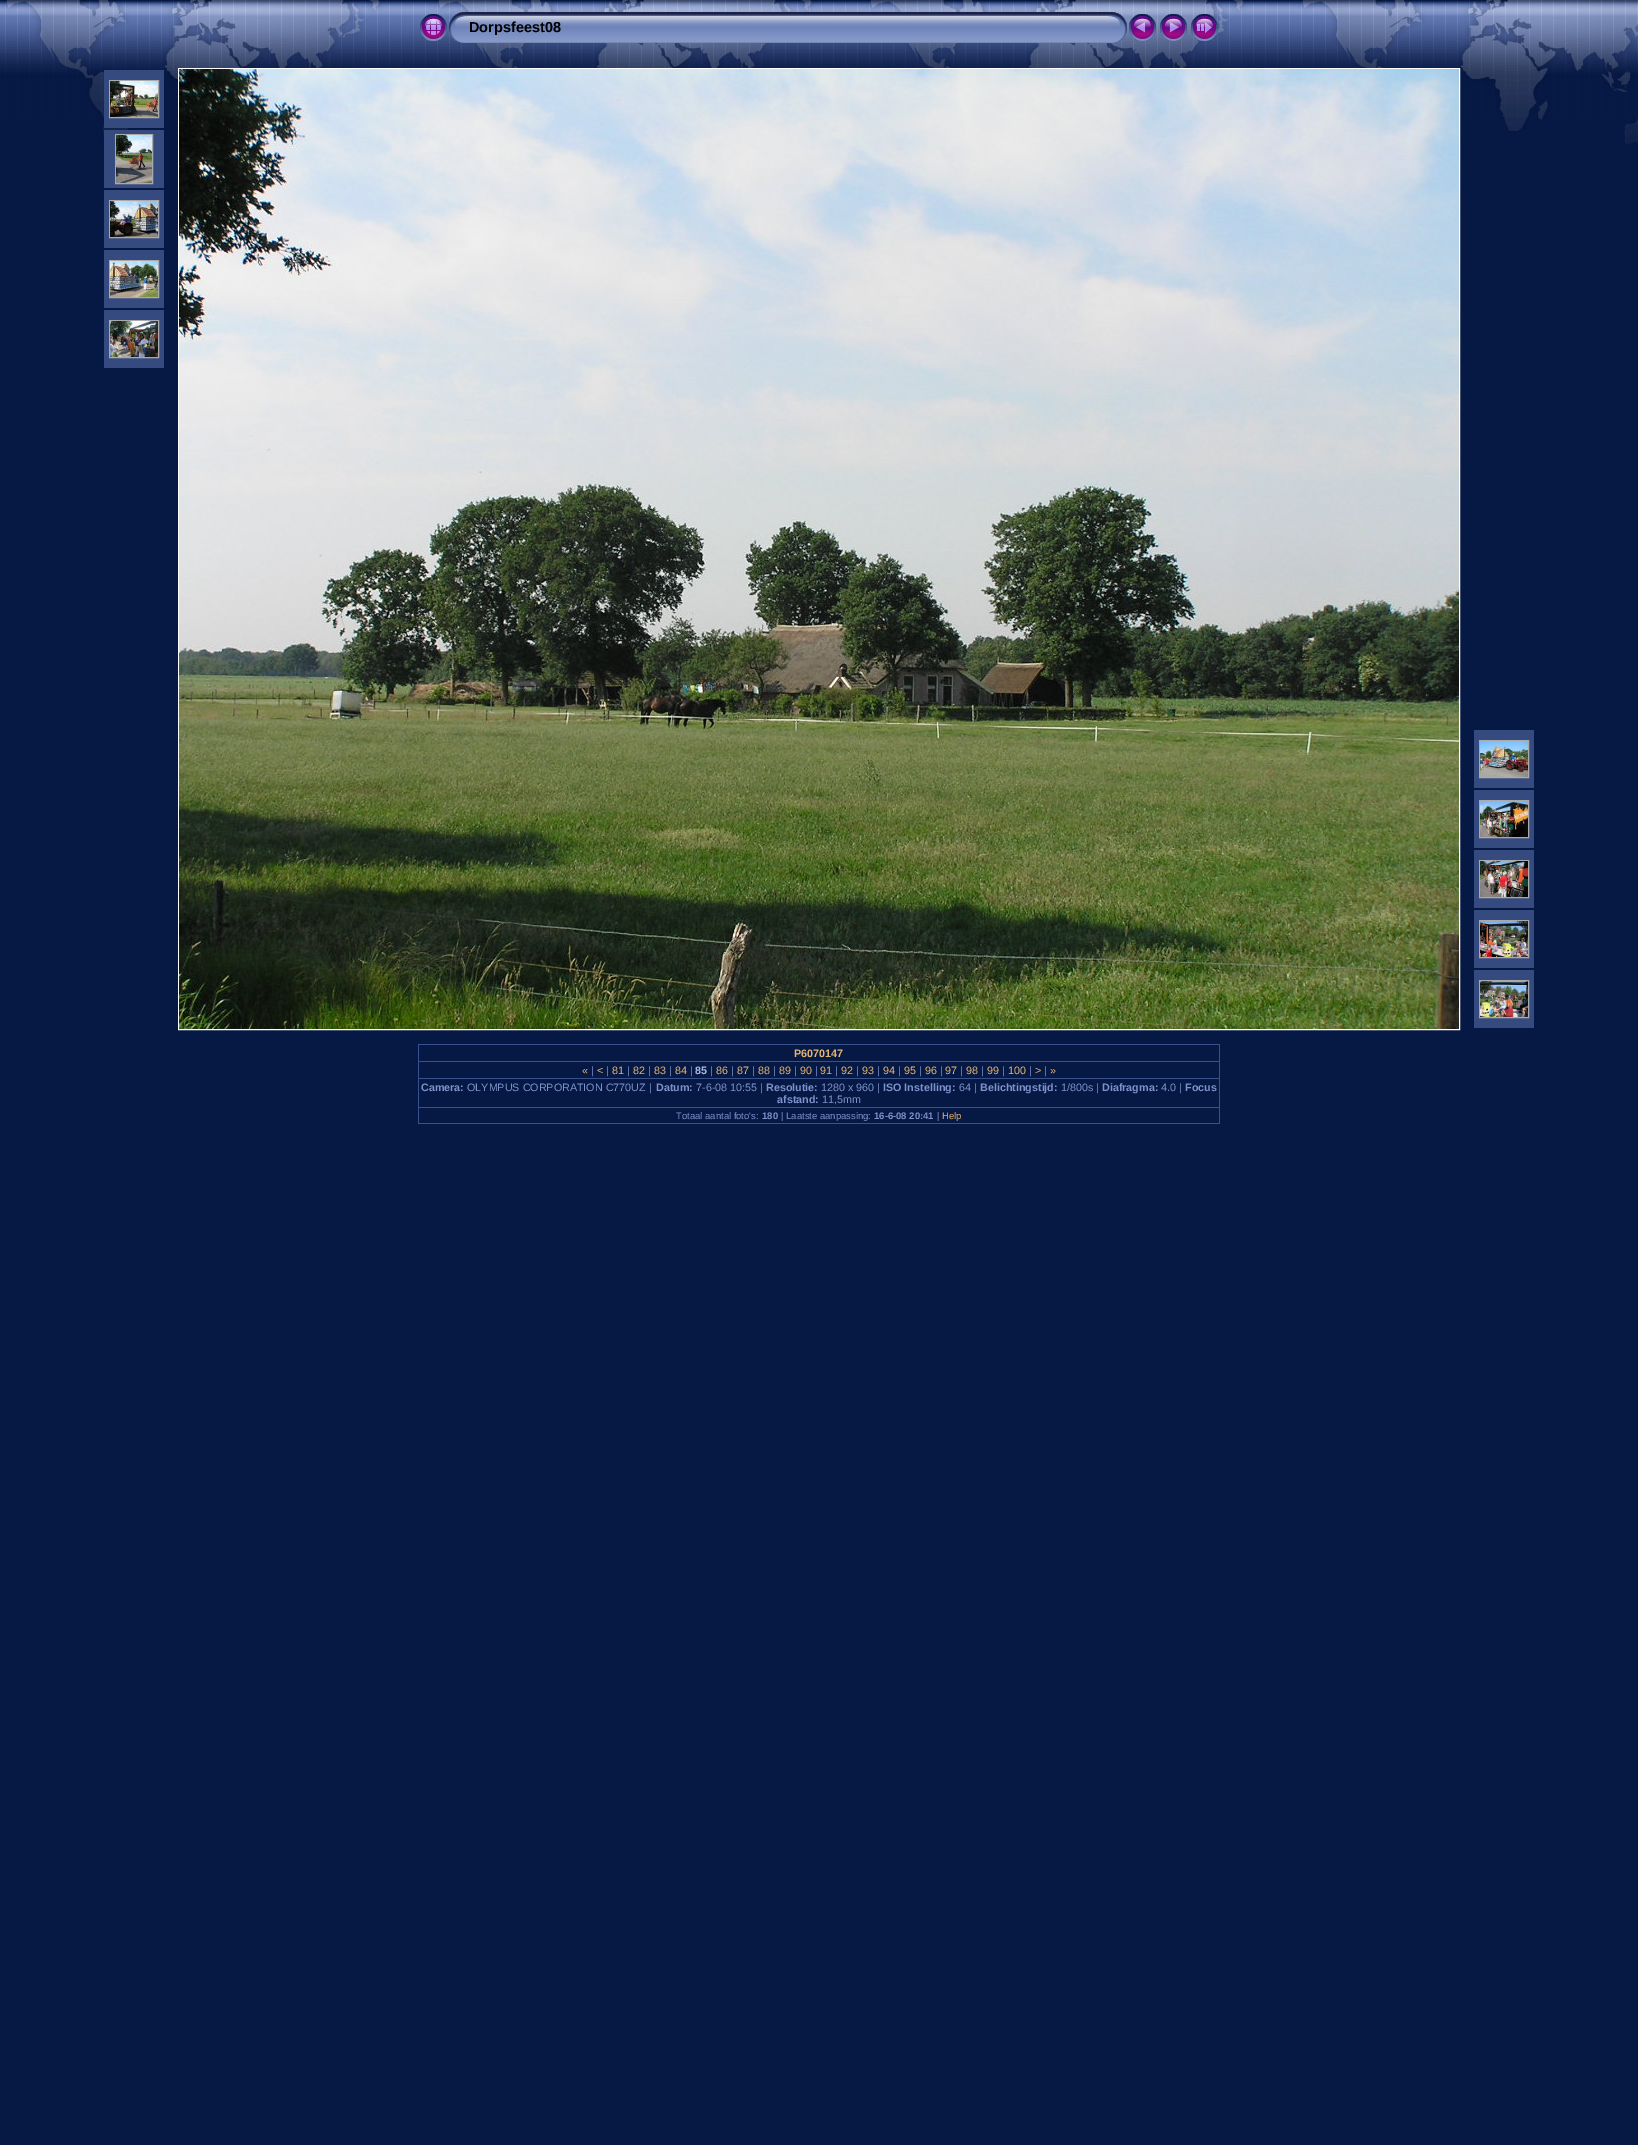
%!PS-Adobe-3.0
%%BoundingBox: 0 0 1638 2145
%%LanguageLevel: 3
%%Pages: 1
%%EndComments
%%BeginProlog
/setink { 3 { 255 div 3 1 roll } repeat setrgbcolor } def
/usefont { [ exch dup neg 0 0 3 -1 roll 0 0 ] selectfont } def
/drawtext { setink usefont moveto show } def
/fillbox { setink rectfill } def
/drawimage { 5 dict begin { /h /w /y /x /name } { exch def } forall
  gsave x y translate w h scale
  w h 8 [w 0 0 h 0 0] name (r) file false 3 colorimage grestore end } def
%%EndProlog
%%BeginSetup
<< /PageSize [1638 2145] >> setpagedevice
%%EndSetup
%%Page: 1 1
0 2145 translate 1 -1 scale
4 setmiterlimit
0 0 1638 2145 6 24 68 fillbox
(assets/img1.rgb) 0 0 1638 168 drawimage
(assets/img2.rgb) 420 14 27 27 drawimage
(assets/img3.rgb) 449 12 20 31 drawimage
(assets/img4.rgb) 469 12 638 31 drawimage
(Dorpsfeest08) 469 32 /LiberationSans-Bold 14.5 0 0 0 drawtext
(assets/img5.rgb) 1107 12 20 31 drawimage
(assets/img6.rgb) 1129 14 27 27 drawimage
(assets/img7.rgb) 1160 14 27 27 drawimage
(assets/img8.rgb) 1191 14 27 27 drawimage
104 70 60 58 53 75 127 fillbox
170 170 170 setink
109.5 80.5 49 37 rectstroke
(assets/img9.rgb) 110 81 48 36 drawimage
104 130 60 58 53 75 127 fillbox
170 170 170 setink
115.5 134.5 37 49 rectstroke
(assets/img10.rgb) 116 135 36 48 drawimage
104 190 60 58 53 75 127 fillbox
170 170 170 setink
109.5 200.5 49 37 rectstroke
(assets/img11.rgb) 110 201 48 36 drawimage
104 250 60 58 53 75 127 fillbox
170 170 170 setink
109.5 260.5 49 37 rectstroke
(assets/img12.rgb) 110 261 48 36 drawimage
104 310 60 58 53 75 127 fillbox
170 170 170 setink
109.5 320.5 49 37 rectstroke
(assets/img13.rgb) 110 321 48 36 drawimage
255 255 255 setink
178.5 68.5 1281 961 rectstroke
(assets/img14.rgb) 179 69 1280 960 drawimage
1474 730 60 58 53 75 127 fillbox
170 170 170 setink
1479.5 740.5 49 37 rectstroke
(assets/img15.rgb) 1480 741 48 36 drawimage
1474 790 60 58 53 75 127 fillbox
170 170 170 setink
1479.5 800.5 49 37 rectstroke
(assets/img16.rgb) 1480 801 48 36 drawimage
1474 850 60 58 53 75 127 fillbox
170 170 170 setink
1479.5 860.5 49 37 rectstroke
(assets/img17.rgb) 1480 861 48 36 drawimage
1474 910 60 58 53 75 127 fillbox
170 170 170 setink
1479.5 920.5 49 37 rectstroke
(assets/img18.rgb) 1480 921 48 36 drawimage
1474 970 60 58 53 75 127 fillbox
170 170 170 setink
1479.5 980.5 49 37 rectstroke
(assets/img19.rgb) 1480 981 48 36 drawimage
418 1044 802 1 56 81 140 fillbox
418 1061 802 1 56 81 140 fillbox
418 1078 802 1 56 81 140 fillbox
418 1107 802 1 56 81 140 fillbox
1219 1107 1 17 56 81 140 fillbox
1219 1078 1 30 56 81 140 fillbox
1219 1061 1 18 56 81 140 fillbox
1219 1044 1 18 56 81 140 fillbox
418 1123 802 1 56 81 140 fillbox
418 1107 1 17 56 81 140 fillbox
418 1078 1 30 56 81 140 fillbox
418 1061 1 18 56 81 140 fillbox
418 1044 1 18 56 81 140 fillbox
(P6070147) 794 1057 /LiberationSans-Bold 10.75 229 182 115 drawtext
(«) 582 1074 /LiberationSans-Regular 10.75 229 182 115 drawtext
(|) 591 1074 /LiberationSans-Regular 10.75 126 147 204 drawtext
(<) 597 1074 /LiberationSans-Regular 10.75 229 182 115 drawtext
(|) 606 1074 /LiberationSans-Regular 10.75 126 147 204 drawtext
(81) 612 1074 /LiberationSans-Regular 10.75 229 182 115 drawtext
(|) 627 1074 /LiberationSans-Regular 10.75 126 147 204 drawtext
(82) 633 1074 /LiberationSans-Regular 10.75 229 182 115 drawtext
(|) 648 1074 /LiberationSans-Regular 10.75 126 147 204 drawtext
(83) 654 1074 /LiberationSans-Regular 10.75 229 182 115 drawtext
(|) 669 1074 /LiberationSans-Regular 10.75 126 147 204 drawtext
(84) 675 1074 /LiberationSans-Regular 10.75 229 182 115 drawtext
(|) 690 1074 /LiberationSans-Regular 10.75 126 147 204 drawtext
(85) 695 1074 /LiberationSans-Bold 10.75 169 186 231 drawtext
(|) 710 1074 /LiberationSans-Regular 10.75 126 147 204 drawtext
(86) 716 1074 /LiberationSans-Regular 10.75 229 182 115 drawtext
(|) 731 1074 /LiberationSans-Regular 10.75 126 147 204 drawtext
(87) 737 1074 /LiberationSans-Regular 10.75 229 182 115 drawtext
(|) 752 1074 /LiberationSans-Regular 10.75 126 147 204 drawtext
(88) 758 1074 /LiberationSans-Regular 10.75 229 182 115 drawtext
(|) 773 1074 /LiberationSans-Regular 10.75 126 147 204 drawtext
(89) 779 1074 /LiberationSans-Regular 10.75 229 182 115 drawtext
(|) 794 1074 /LiberationSans-Regular 10.75 126 147 204 drawtext
(90) 800 1074 /LiberationSans-Regular 10.75 229 182 115 drawtext
(|) 815 1074 /LiberationSans-Regular 10.75 126 147 204 drawtext
(91) 820 1074 /LiberationSans-Regular 10.75 229 182 115 drawtext
(|) 835 1074 /LiberationSans-Regular 10.75 126 147 204 drawtext
(92) 841 1074 /LiberationSans-Regular 10.75 229 182 115 drawtext
(|) 856 1074 /LiberationSans-Regular 10.75 126 147 204 drawtext
(93) 862 1074 /LiberationSans-Regular 10.75 229 182 115 drawtext
(|) 877 1074 /LiberationSans-Regular 10.75 126 147 204 drawtext
(94) 883 1074 /LiberationSans-Regular 10.75 229 182 115 drawtext
(|) 898 1074 /LiberationSans-Regular 10.75 126 147 204 drawtext
(95) 904 1074 /LiberationSans-Regular 10.75 229 182 115 drawtext
(|) 919 1074 /LiberationSans-Regular 10.75 126 147 204 drawtext
(96) 925 1074 /LiberationSans-Regular 10.75 229 182 115 drawtext
(|) 940 1074 /LiberationSans-Regular 10.75 126 147 204 drawtext
(97) 945 1074 /LiberationSans-Regular 10.75 229 182 115 drawtext
(|) 960 1074 /LiberationSans-Regular 10.75 126 147 204 drawtext
(98) 966 1074 /LiberationSans-Regular 10.75 229 182 115 drawtext
(|) 981 1074 /LiberationSans-Regular 10.75 126 147 204 drawtext
(99) 987 1074 /LiberationSans-Regular 10.75 229 182 115 drawtext
(|) 1002 1074 /LiberationSans-Regular 10.75 126 147 204 drawtext
(100) 1008 1074 /LiberationSans-Regular 10.75 229 182 115 drawtext
(|) 1029 1074 /LiberationSans-Regular 10.75 126 147 204 drawtext
(>) 1035 1074 /LiberationSans-Regular 10.75 229 182 115 drawtext
(|) 1044 1074 /LiberationSans-Regular 10.75 126 147 204 drawtext
(») 1050 1074 /LiberationSans-Regular 10.75 229 182 115 drawtext
(Camera:) 421 1091 /LiberationSans-Bold 10.75 126 147 204 drawtext
(OLYMPUS CORPORATION C770UZ |) 467 1091 /LiberationSans-Regular 10.75 126 147 204 drawtext
(Datum:) 656 1091 /LiberationSans-Bold 10.75 126 147 204 drawtext
(7-6-08 10:55 |) 696 1091 /LiberationSans-Regular 10.75 126 147 204 drawtext
(Resolutie:) 766 1091 /LiberationSans-Bold 10.75 126 147 204 drawtext
(1280 x 960 |) 821 1091 /LiberationSans-Regular 10.75 126 147 204 drawtext
(ISO Instelling:) 883 1091 /LiberationSans-Bold 10.75 126 147 204 drawtext
(64 |) 959 1091 /LiberationSans-Regular 10.75 126 147 204 drawtext
(Belichtingstijd:) 980 1091 /LiberationSans-Bold 10.75 126 147 204 drawtext
(1/800s |) 1061 1091 /LiberationSans-Regular 10.75 126 147 204 drawtext
(Diafragma:) 1102 1091 /LiberationSans-Bold 10.75 126 147 204 drawtext
(4.0 |) 1161 1091 /LiberationSans-Regular 10.75 126 147 204 drawtext
(Focus) 1185 1091 /LiberationSans-Bold 10.75 126 147 204 drawtext
(afstand:) 777 1103 /LiberationSans-Bold 10.75 126 147 204 drawtext
(11,5mm) 822 1103 /LiberationSans-Regular 10.75 126 147 204 drawtext
(Totaal aantal foto's:) 676 1119 /LiberationSans-Regular 9.5 126 147 204 drawtext
(180) 762 1119 /LiberationSans-Bold 9.5 126 147 204 drawtext
(| Laatste aanpassing:) 781 1119 /LiberationSans-Regular 9.5 126 147 204 drawtext
(16-6-08 20:41) 874 1119 /LiberationSans-Bold 9.5 126 147 204 drawtext
(|) 937 1119 /LiberationSans-Regular 9.5 126 147 204 drawtext
(Help) 942 1119 /LiberationSans-Regular 9.5 229 182 115 drawtext
showpage
%%EOF
